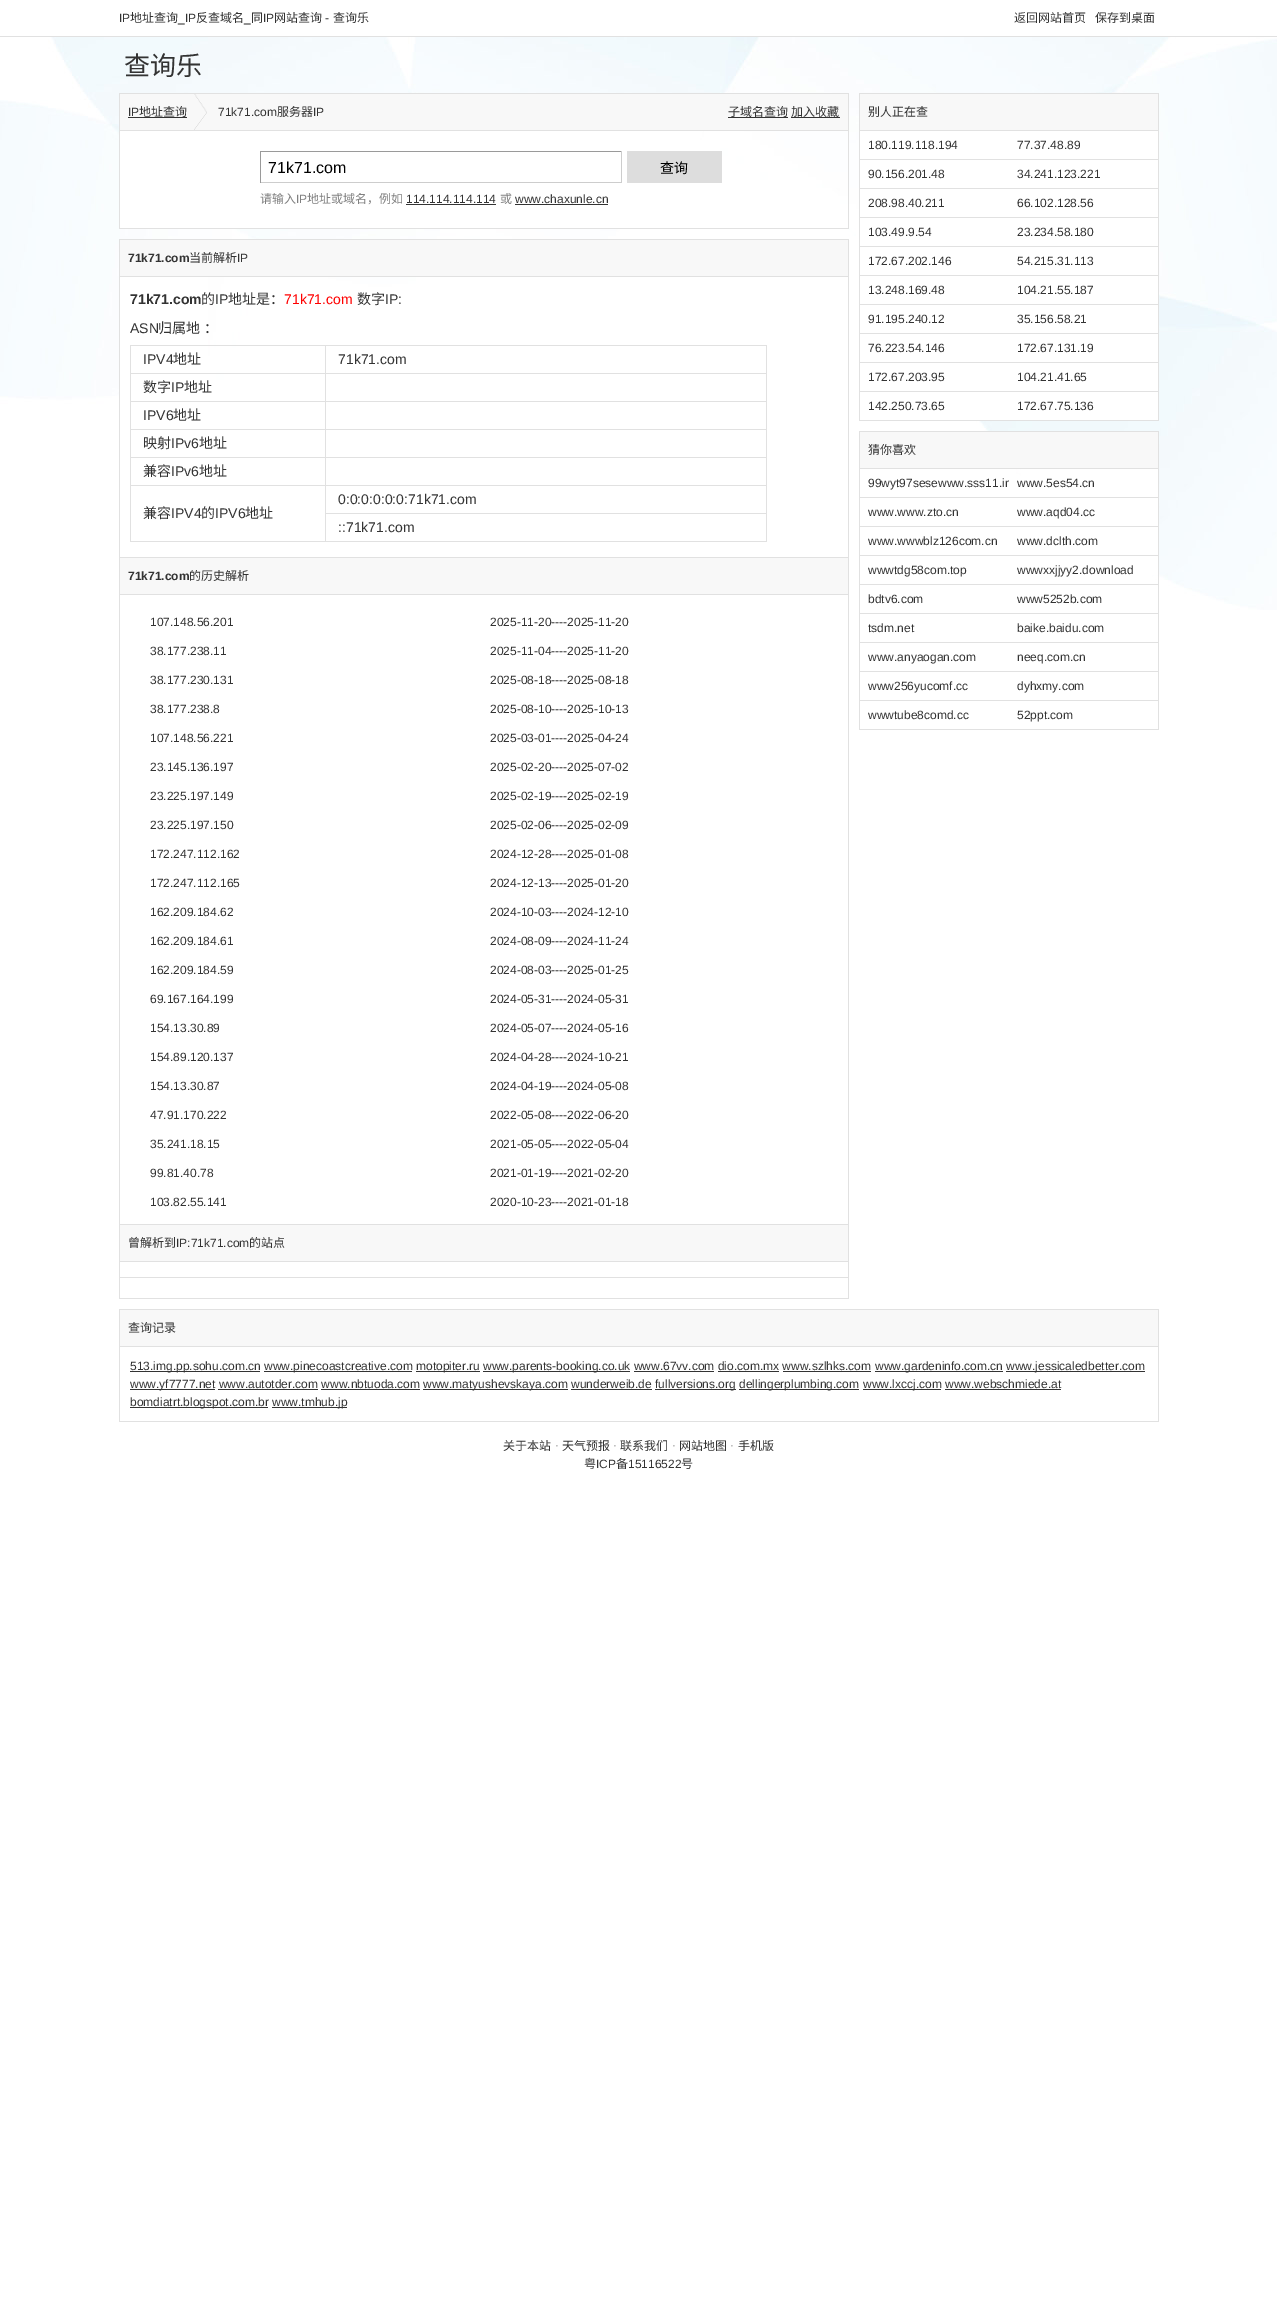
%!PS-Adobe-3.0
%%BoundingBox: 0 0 1277 2301
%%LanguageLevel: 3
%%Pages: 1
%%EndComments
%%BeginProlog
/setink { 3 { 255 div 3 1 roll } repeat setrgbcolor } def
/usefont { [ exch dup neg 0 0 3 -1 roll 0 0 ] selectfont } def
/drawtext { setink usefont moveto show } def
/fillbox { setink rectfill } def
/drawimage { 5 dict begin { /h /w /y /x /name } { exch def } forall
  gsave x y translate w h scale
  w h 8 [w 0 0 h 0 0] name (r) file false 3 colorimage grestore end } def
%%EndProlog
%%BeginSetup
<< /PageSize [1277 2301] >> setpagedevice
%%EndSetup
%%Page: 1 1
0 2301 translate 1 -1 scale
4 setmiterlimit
0 0 1277 2301 255 255 255 fillbox
(assets/img1.rgb) 0 37 1277 573 drawimage
0 36 1277 1 225 225 225 fillbox
(IP) 119 22 /LiberationSans-Regular 12 51 51 51 drawtext
(地址查询) 130 22 /NotoSansCJKSC-Regular 12 51 51 51 drawtext
(_IP) 178 22 /LiberationSans-Regular 12 51 51 51 drawtext
(反查域名) 196 22 /NotoSansCJKSC-Regular 12 51 51 51 drawtext
(同) 251 22 /NotoSansCJKSC-Regular 12 51 51 51 drawtext
(IP) 263 22 /LiberationSans-Regular 12 51 51 51 drawtext
(网站查询) 274 22 /NotoSansCJKSC-Regular 12 51 51 51 drawtext
(-) 325 22 /LiberationSans-Regular 12 51 51 51 drawtext
(查询乐) 333 22 /NotoSansCJKSC-Regular 12 51 51 51 drawtext
(_) 244 22 /LiberationSans-Regular 12 51 51 51 drawtext
(返回网站首页) 1014 22 /NotoSansCJKSC-Regular 12 51 51 51 drawtext
(保存到桌面) 1095 22 /NotoSansCJKSC-Regular 12 51 51 51 drawtext
(查询乐) 124 75 /NotoSansCJKSC-Regular 26 51 51 51 drawtext
120 131 580 97 255 255 255 fillbox
848 93 1 136 225 225 225 fillbox
119 228 730 1 225 225 225 fillbox
119 93 1 136 225 225 225 fillbox
120 94 728 36 248 248 248 fillbox
120 93 728 1 225 225 225 fillbox
120 130 728 1 225 225 225 fillbox
(assets/img2.rgb) 194 94 13 36 drawimage
(IP) 128 116 /LiberationSans-Regular 12 51 51 51 drawtext
128 117 59 1 51 51 51 fillbox
(地址查询) 139 116 /NotoSansCJKSC-Regular 12 51 51 51 drawtext
(71k71.com) 218 116 /LiberationSans-Regular 12 51 51 51 drawtext
(服务器) 277 116 /NotoSansCJKSC-Regular 12 51 51 51 drawtext
(IP) 313 116 /LiberationSans-Regular 12 51 51 51 drawtext
(子域名查询) 728 116 /NotoSansCJKSC-Regular 12 51 51 51 drawtext
728 117 60 1 51 51 51 fillbox
(加入收藏) 791 116 /NotoSansCJKSC-Regular 12 51 51 51 drawtext
791 117 49 1 51 51 51 fillbox
260 151 362 1 154 154 154 fillbox
621 151 1 32 205 205 205 fillbox
260 182 362 1 205 205 205 fillbox
260 151 1 32 154 154 154 fillbox
(71k71.com) 268 173 /LiberationSans-Regular 16 0 0 0 drawtext
627 151 95 32 221 221 221 fillbox
(查询) 660 173 /NotoSansCJKSC-Regular 14 0 0 0 drawtext
(请输入) 260 203 /NotoSansCJKSC-Regular 12 128 128 128 drawtext
(IP) 296 203 /LiberationSans-Regular 12 128 128 128 drawtext
(地址或域名，例如) 307 203 /NotoSansCJKSC-Regular 12 128 128 128 drawtext
(114.114.114.114) 406 203 /LiberationSans-Regular 12 51 51 51 drawtext
406 204 90 1 51 51 51 fillbox
(或) 500 203 /NotoSansCJKSC-Regular 12 128 128 128 drawtext
(www.chaxunle.cn) 515 203 /LiberationSans-Regular 12 51 51 51 drawtext
515 204 93 1 51 51 51 fillbox
120 277 88 119 255 255 255 fillbox
848 239 1 1060 225 225 225 fillbox
119 1298 730 1 225 225 225 fillbox
119 239 1 1060 225 225 225 fillbox
120 240 728 36 248 248 248 fillbox
120 239 728 1 225 225 225 fillbox
120 276 728 1 225 225 225 fillbox
(71k71.com) 128 262 /LiberationSans-Bold 12 51 51 51 drawtext
(当前解析) 189 262 /NotoSansCJKSC-Regular 12 51 51 51 drawtext
(IP) 237 262 /LiberationSans-Regular 12 51 51 51 drawtext
(71k71.com) 130 304 /LiberationSans-Bold 14 51 51 51 drawtext
(的) 201 304 /NotoSansCJKSC-Regular 14 51 51 51 drawtext
(IP) 215 304 /LiberationSans-Regular 14 51 51 51 drawtext
(地址是：) 228 304 /NotoSansCJKSC-Regular 14 51 51 51 drawtext
(71k71.com) 284 304 /LiberationSans-Regular 14 255 0 0 drawtext
(数字) 357 304 /NotoSansCJKSC-Regular 14 51 51 51 drawtext
(IP:) 385 304 /LiberationSans-Regular 14 51 51 51 drawtext
(ASN) 130 333 /LiberationSans-Regular 14 51 51 51 drawtext
/NotoSansCJKSC-Regular 14 usefont
158 333 moveto 1 0 32 (归属地 ：) widthshow
130 541 637 1 225 225 225 fillbox
325 345 442 1 225 225 225 fillbox
325 373 442 1 225 225 225 fillbox
325 401 442 1 225 225 225 fillbox
325 429 442 1 225 225 225 fillbox
325 457 442 1 225 225 225 fillbox
325 485 442 1 225 225 225 fillbox
325 513 442 1 225 225 225 fillbox
325 513 1 29 225 225 225 fillbox
325 485 1 29 225 225 225 fillbox
130 485 196 1 225 225 225 fillbox
325 457 1 29 225 225 225 fillbox
130 457 196 1 225 225 225 fillbox
325 429 1 29 225 225 225 fillbox
130 429 196 1 225 225 225 fillbox
325 401 1 29 225 225 225 fillbox
130 401 196 1 225 225 225 fillbox
325 373 1 29 225 225 225 fillbox
130 373 196 1 225 225 225 fillbox
325 345 1 29 225 225 225 fillbox
130 345 196 1 225 225 225 fillbox
130 485 1 57 225 225 225 fillbox
130 457 1 29 225 225 225 fillbox
130 429 1 29 225 225 225 fillbox
130 401 1 29 225 225 225 fillbox
130 373 1 29 225 225 225 fillbox
130 345 1 29 225 225 225 fillbox
(IPV4) 143 364 /LiberationSans-Regular 14 51 51 51 drawtext
(地址) 173 364 /NotoSansCJKSC-Regular 14 51 51 51 drawtext
766 513 1 29 225 225 225 fillbox
766 485 1 29 225 225 225 fillbox
766 457 1 29 225 225 225 fillbox
766 429 1 29 225 225 225 fillbox
766 401 1 29 225 225 225 fillbox
766 373 1 29 225 225 225 fillbox
766 345 1 29 225 225 225 fillbox
(71k71.com) 338 364 /LiberationSans-Regular 14 51 51 51 drawtext
(数字) 143 392 /NotoSansCJKSC-Regular 14 51 51 51 drawtext
(IP) 171 392 /LiberationSans-Regular 14 51 51 51 drawtext
(地址) 184 392 /NotoSansCJKSC-Regular 14 51 51 51 drawtext
(IPV6) 143 420 /LiberationSans-Regular 14 51 51 51 drawtext
(地址) 173 420 /NotoSansCJKSC-Regular 14 51 51 51 drawtext
(映射) 143 448 /NotoSansCJKSC-Regular 14 51 51 51 drawtext
(IPv6) 171 448 /LiberationSans-Regular 14 51 51 51 drawtext
(地址) 199 448 /NotoSansCJKSC-Regular 14 51 51 51 drawtext
(兼容) 143 476 /NotoSansCJKSC-Regular 14 51 51 51 drawtext
(IPv6) 171 476 /LiberationSans-Regular 14 51 51 51 drawtext
(地址) 199 476 /NotoSansCJKSC-Regular 14 51 51 51 drawtext
(0:0:0:0:0:0:71k71.com) 338 504 /LiberationSans-Regular 14 51 51 51 drawtext
(兼容) 143 518 /NotoSansCJKSC-Regular 14 51 51 51 drawtext
(IPV4) 171 518 /LiberationSans-Regular 14 51 51 51 drawtext
(的) 201 518 /NotoSansCJKSC-Regular 14 51 51 51 drawtext
(IPV6) 215 518 /LiberationSans-Regular 14 51 51 51 drawtext
(地址) 245 518 /NotoSansCJKSC-Regular 14 51 51 51 drawtext
(::71k71.com) 338 532 /LiberationSans-Regular 14 51 51 51 drawtext
120 558 728 36 248 248 248 fillbox
120 557 728 1 225 225 225 fillbox
120 594 728 1 225 225 225 fillbox
(71k71.com) 128 580 /LiberationSans-Bold 12 51 51 51 drawtext
(的历史解析) 189 580 /NotoSansCJKSC-Regular 12 51 51 51 drawtext
(107.148.56.201) 150 626 /LiberationSans-Regular 12 51 51 51 drawtext
(2025-11-20----2025-11-20) 490 626 /LiberationSans-Regular 12 51 51 51 drawtext
(38.177.238.11) 150 655 /LiberationSans-Regular 12 51 51 51 drawtext
(2025-11-04----2025-11-20) 490 655 /LiberationSans-Regular 12 51 51 51 drawtext
(38.177.230.131) 150 684 /LiberationSans-Regular 12 51 51 51 drawtext
(2025-08-18----2025-08-18) 490 684 /LiberationSans-Regular 12 51 51 51 drawtext
(38.177.238.8) 150 713 /LiberationSans-Regular 12 51 51 51 drawtext
(2025-08-10----2025-10-13) 490 713 /LiberationSans-Regular 12 51 51 51 drawtext
(107.148.56.221) 150 742 /LiberationSans-Regular 12 51 51 51 drawtext
(2025-03-01----2025-04-24) 490 742 /LiberationSans-Regular 12 51 51 51 drawtext
(23.145.136.197) 150 771 /LiberationSans-Regular 12 51 51 51 drawtext
(2025-02-20----2025-07-02) 490 771 /LiberationSans-Regular 12 51 51 51 drawtext
(23.225.197.149) 150 800 /LiberationSans-Regular 12 51 51 51 drawtext
(2025-02-19----2025-02-19) 490 800 /LiberationSans-Regular 12 51 51 51 drawtext
(23.225.197.150) 150 829 /LiberationSans-Regular 12 51 51 51 drawtext
(2025-02-06----2025-02-09) 490 829 /LiberationSans-Regular 12 51 51 51 drawtext
(172.247.112.162) 150 858 /LiberationSans-Regular 12 51 51 51 drawtext
(2024-12-28----2025-01-08) 490 858 /LiberationSans-Regular 12 51 51 51 drawtext
(172.247.112.165) 150 887 /LiberationSans-Regular 12 51 51 51 drawtext
(2024-12-13----2025-01-20) 490 887 /LiberationSans-Regular 12 51 51 51 drawtext
(162.209.184.62) 150 916 /LiberationSans-Regular 12 51 51 51 drawtext
(2024-10-03----2024-12-10) 490 916 /LiberationSans-Regular 12 51 51 51 drawtext
(162.209.184.61) 150 945 /LiberationSans-Regular 12 51 51 51 drawtext
(2024-08-09----2024-11-24) 490 945 /LiberationSans-Regular 12 51 51 51 drawtext
(162.209.184.59) 150 974 /LiberationSans-Regular 12 51 51 51 drawtext
(2024-08-03----2025-01-25) 490 974 /LiberationSans-Regular 12 51 51 51 drawtext
(69.167.164.199) 150 1003 /LiberationSans-Regular 12 51 51 51 drawtext
(2024-05-31----2024-05-31) 490 1003 /LiberationSans-Regular 12 51 51 51 drawtext
(154.13.30.89) 150 1032 /LiberationSans-Regular 12 51 51 51 drawtext
(2024-05-07----2024-05-16) 490 1032 /LiberationSans-Regular 12 51 51 51 drawtext
(154.89.120.137) 150 1061 /LiberationSans-Regular 12 51 51 51 drawtext
(2024-04-28----2024-10-21) 490 1061 /LiberationSans-Regular 12 51 51 51 drawtext
(154.13.30.87) 150 1090 /LiberationSans-Regular 12 51 51 51 drawtext
(2024-04-19----2024-05-08) 490 1090 /LiberationSans-Regular 12 51 51 51 drawtext
(47.91.170.222) 150 1119 /LiberationSans-Regular 12 51 51 51 drawtext
(2022-05-08----2022-06-20) 490 1119 /LiberationSans-Regular 12 51 51 51 drawtext
(35.241.18.15) 150 1148 /LiberationSans-Regular 12 51 51 51 drawtext
(2021-05-05----2022-05-04) 490 1148 /LiberationSans-Regular 12 51 51 51 drawtext
(99.81.40.78) 150 1177 /LiberationSans-Regular 12 51 51 51 drawtext
(2021-01-19----2021-02-20) 490 1177 /LiberationSans-Regular 12 51 51 51 drawtext
(103.82.55.141) 150 1206 /LiberationSans-Regular 12 51 51 51 drawtext
(2020-10-23----2021-01-18) 490 1206 /LiberationSans-Regular 12 51 51 51 drawtext
120 1225 728 36 248 248 248 fillbox
120 1224 728 1 225 225 225 fillbox
120 1261 728 1 225 225 225 fillbox
(曾解析到) 128 1247 /NotoSansCJKSC-Regular 12 51 51 51 drawtext
(IP:71k71.com) 176 1247 /LiberationSans-Regular 12 51 51 51 drawtext
(的站点) 249 1247 /NotoSansCJKSC-Regular 12 51 51 51 drawtext
120 1277 728 1 225 225 225 fillbox
860 131 298 289 255 255 255 fillbox
1158 93 1 328 225 225 225 fillbox
859 420 300 1 225 225 225 fillbox
859 93 1 328 225 225 225 fillbox
860 94 298 36 248 248 248 fillbox
860 93 298 1 225 225 225 fillbox
860 130 298 1 225 225 225 fillbox
(别人正在查) 868 116 /NotoSansCJKSC-Regular 12 51 51 51 drawtext
(180.119.118.194) 868 149 /LiberationSans-Regular 12 51 51 51 drawtext
(77.37.48.89) 1017 149 /LiberationSans-Regular 12 51 51 51 drawtext
860 159 298 1 225 225 225 fillbox
(90.156.201.48) 868 178 /LiberationSans-Regular 12 51 51 51 drawtext
(34.241.123.221) 1017 178 /LiberationSans-Regular 12 51 51 51 drawtext
860 188 298 1 225 225 225 fillbox
(208.98.40.211) 868 207 /LiberationSans-Regular 12 51 51 51 drawtext
(66.102.128.56) 1017 207 /LiberationSans-Regular 12 51 51 51 drawtext
860 217 298 1 225 225 225 fillbox
(103.49.9.54) 868 236 /LiberationSans-Regular 12 51 51 51 drawtext
(23.234.58.180) 1017 236 /LiberationSans-Regular 12 51 51 51 drawtext
860 246 298 1 225 225 225 fillbox
(172.67.202.146) 868 265 /LiberationSans-Regular 12 51 51 51 drawtext
(54.215.31.113) 1017 265 /LiberationSans-Regular 12 51 51 51 drawtext
860 275 298 1 225 225 225 fillbox
(13.248.169.48) 868 294 /LiberationSans-Regular 12 51 51 51 drawtext
(104.21.55.187) 1017 294 /LiberationSans-Regular 12 51 51 51 drawtext
860 304 298 1 225 225 225 fillbox
(91.195.240.12) 868 323 /LiberationSans-Regular 12 51 51 51 drawtext
(35.156.58.21) 1017 323 /LiberationSans-Regular 12 51 51 51 drawtext
860 333 298 1 225 225 225 fillbox
(76.223.54.146) 868 352 /LiberationSans-Regular 12 51 51 51 drawtext
(172.67.131.19) 1017 352 /LiberationSans-Regular 12 51 51 51 drawtext
860 362 298 1 225 225 225 fillbox
(172.67.203.95) 868 381 /LiberationSans-Regular 12 51 51 51 drawtext
(104.21.41.65) 1017 381 /LiberationSans-Regular 12 51 51 51 drawtext
860 391 298 1 225 225 225 fillbox
(142.250.73.65) 868 410 /LiberationSans-Regular 12 51 51 51 drawtext
(172.67.75.136) 1017 410 /LiberationSans-Regular 12 51 51 51 drawtext
1021 469 137 106 255 255 255 fillbox
1158 431 1 299 225 225 225 fillbox
859 729 300 1 225 225 225 fillbox
859 431 1 299 225 225 225 fillbox
860 432 298 36 248 248 248 fillbox
860 431 298 1 225 225 225 fillbox
860 468 298 1 225 225 225 fillbox
(猜你喜欢) 868 454 /NotoSansCJKSC-Regular 12 51 51 51 drawtext
gsave
860 469 149 28 rectclip
(99wyt97sesewww.sss11.in) 868 487 /LiberationSans-Regular 12 51 51 51 drawtext
grestore
(www.5es54.cn) 1017 487 /LiberationSans-Regular 12 51 51 51 drawtext
860 497 298 1 225 225 225 fillbox
(www.www.zto.cn) 868 516 /LiberationSans-Regular 12 51 51 51 drawtext
(www.aqd04.cc) 1017 516 /LiberationSans-Regular 12 51 51 51 drawtext
860 526 298 1 225 225 225 fillbox
(www.wwwblz126com.cn) 868 545 /LiberationSans-Regular 12 51 51 51 drawtext
(www.dclth.com) 1017 545 /LiberationSans-Regular 12 51 51 51 drawtext
860 555 298 1 225 225 225 fillbox
(wwwtdg58com.top) 868 574 /LiberationSans-Regular 12 51 51 51 drawtext
(wwwxxjjyy2.download) 1017 574 /LiberationSans-Regular 12 51 51 51 drawtext
860 584 298 1 225 225 225 fillbox
(bdtv6.com) 868 603 /LiberationSans-Regular 12 51 51 51 drawtext
(www5252b.com) 1017 603 /LiberationSans-Regular 12 51 51 51 drawtext
860 613 298 1 225 225 225 fillbox
(tsdm.net) 868 632 /LiberationSans-Regular 12 51 51 51 drawtext
(baike.baidu.com) 1017 632 /LiberationSans-Regular 12 51 51 51 drawtext
860 642 298 1 225 225 225 fillbox
(www.anyaogan.com) 868 661 /LiberationSans-Regular 12 51 51 51 drawtext
(neeq.com.cn) 1017 661 /LiberationSans-Regular 12 51 51 51 drawtext
860 671 298 1 225 225 225 fillbox
(www256yucomf.cc) 868 690 /LiberationSans-Regular 12 51 51 51 drawtext
(dyhxmy.com) 1017 690 /LiberationSans-Regular 12 51 51 51 drawtext
860 700 298 1 225 225 225 fillbox
(wwwtube8comd.cc) 868 719 /LiberationSans-Regular 12 51 51 51 drawtext
(52ppt.com) 1017 719 /LiberationSans-Regular 12 51 51 51 drawtext
1158 1309 1 113 225 225 225 fillbox
119 1421 1040 1 225 225 225 fillbox
119 1309 1 113 225 225 225 fillbox
120 1310 1038 36 248 248 248 fillbox
120 1309 1038 1 225 225 225 fillbox
120 1346 1038 1 225 225 225 fillbox
(查询记录) 128 1332 /NotoSansCJKSC-Regular 12 51 51 51 drawtext
130 1371 130 1 51 51 51 fillbox
(513.img.pp.sohu.com.cn) 130 1370 /LiberationSans-Regular 12 51 51 51 drawtext
264 1371 148 1 51 51 51 fillbox
(www.pinecoastcreative.com) 264 1370 /LiberationSans-Regular 12 51 51 51 drawtext
416 1371 64 1 51 51 51 fillbox
(motopiter.ru) 416 1370 /LiberationSans-Regular 12 51 51 51 drawtext
483 1371 147 1 51 51 51 fillbox
(www.parents-booking.co.uk www.67vv.com dio.com.mx www.szlhks.com) 483 1370 /LiberationSans-Regular 12 51 51 51 drawtext
875 1371 128 1 51 51 51 fillbox
(www.gardeninfo.com.cn) 875 1370 /LiberationSans-Regular 12 51 51 51 drawtext
1006 1371 139 1 51 51 51 fillbox
(www.jessicaledbetter.com) 1006 1370 /LiberationSans-Regular 12 51 51 51 drawtext
634 1371 80 1 51 51 51 fillbox
718 1371 61 1 51 51 51 fillbox
783 1371 88 1 51 51 51 fillbox
130 1389 85 1 51 51 51 fillbox
(www.yf7777.net www.autotder.com www.nbtuoda.com) 130 1388 /LiberationSans-Regular 12 51 51 51 drawtext
423 1389 145 1 51 51 51 fillbox
(www.matyushevskaya.com wunderweib.de) 423 1388 /LiberationSans-Regular 12 51 51 51 drawtext
655 1389 81 1 51 51 51 fillbox
(fullversions.org) 655 1388 /LiberationSans-Regular 12 51 51 51 drawtext
739 1389 120 1 51 51 51 fillbox
(dellingerplumbing.com) 739 1388 /LiberationSans-Regular 12 51 51 51 drawtext
863 1389 78 1 51 51 51 fillbox
(www.lxccj.com www.webschmiede.at) 863 1388 /LiberationSans-Regular 12 51 51 51 drawtext
218 1389 100 1 51 51 51 fillbox
321 1389 99 1 51 51 51 fillbox
571 1389 81 1 51 51 51 fillbox
945 1389 116 1 51 51 51 fillbox
130 1407 138 1 51 51 51 fillbox
(bomdiatrt.blogspot.com.br) 130 1406 /LiberationSans-Regular 12 51 51 51 drawtext
272 1407 75 1 51 51 51 fillbox
(www.tmhub.jp) 272 1406 /LiberationSans-Regular 12 51 51 51 drawtext
(关于本站) 503 1450 /NotoSansCJKSC-Regular 12 51 51 51 drawtext
(⋅) 555 1450 /DejaVuSans-Regular 12 170 170 170 drawtext
(天气预报) 562 1450 /NotoSansCJKSC-Regular 12 51 51 51 drawtext
(⋅) 613 1450 /DejaVuSans-Regular 12 170 170 170 drawtext
(联系我们) 620 1450 /NotoSansCJKSC-Regular 12 51 51 51 drawtext
(⋅) 672 1450 /DejaVuSans-Regular 12 170 170 170 drawtext
(网站地图) 679 1450 /NotoSansCJKSC-Regular 12 51 51 51 drawtext
(⋅) 730 1450 /DejaVuSans-Regular 12 170 170 170 drawtext
(手机版) 738 1450 /NotoSansCJKSC-Regular 12 51 51 51 drawtext
(粤) 584 1468 /NotoSansCJKSC-Regular 12 51 51 51 drawtext
(ICP) 596 1468 /LiberationSans-Regular 12 51 51 51 drawtext
(备) 616 1468 /NotoSansCJKSC-Regular 12 51 51 51 drawtext
(15116522) 628 1468 /LiberationSans-Regular 12 51 51 51 drawtext
(号) 681 1468 /NotoSansCJKSC-Regular 12 51 51 51 drawtext
showpage
%%EOF
